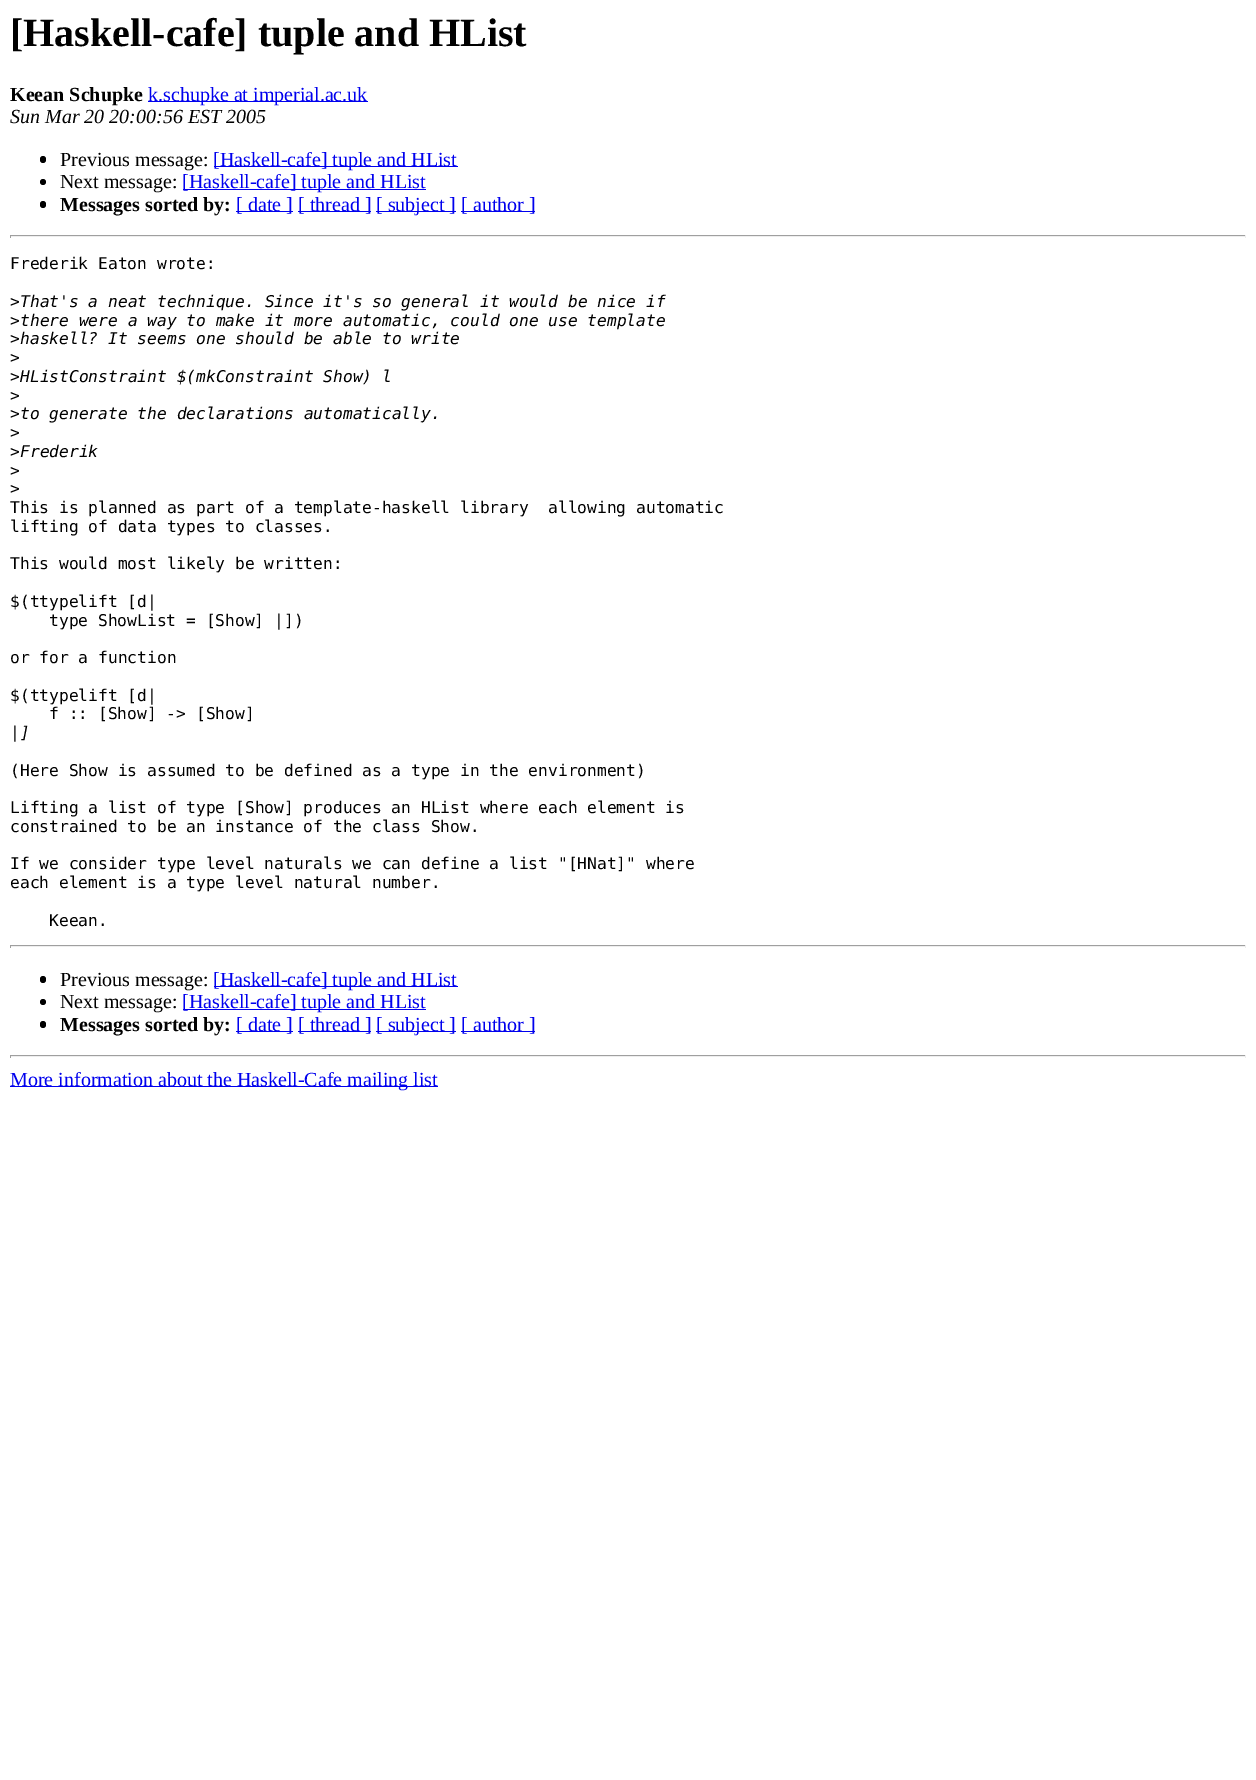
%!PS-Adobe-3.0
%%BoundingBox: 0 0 1256 1780
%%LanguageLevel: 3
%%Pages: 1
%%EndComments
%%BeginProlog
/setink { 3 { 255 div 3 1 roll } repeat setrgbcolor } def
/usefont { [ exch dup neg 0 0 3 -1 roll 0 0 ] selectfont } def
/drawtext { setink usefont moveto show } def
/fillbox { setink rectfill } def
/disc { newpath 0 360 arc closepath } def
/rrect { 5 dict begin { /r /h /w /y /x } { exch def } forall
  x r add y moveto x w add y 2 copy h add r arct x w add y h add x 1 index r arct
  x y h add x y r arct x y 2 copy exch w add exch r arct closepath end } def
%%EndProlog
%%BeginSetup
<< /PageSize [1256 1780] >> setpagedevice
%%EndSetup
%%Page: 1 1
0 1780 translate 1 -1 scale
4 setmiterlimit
0 0 1256 1780 255 255 255 fillbox
([Haskell-cafe] tuple and HList) 10 46 /LiberationSerif-Bold 40 0 0 0 drawtext
(Keean Schupke) 10 101 /LiberationSerif-Bold 20 0 0 0 drawtext
148 101 220 1 0 0 238 fillbox
(k.schupke at imperial.ac.uk) 148 101 /LiberationSerif-Regular 20 0 0 238 drawtext
(Sun Mar 20 20:00:56 EST 2005) 10 123 /LiberationSerif-Italic 20 0 0 0 drawtext
40 156 6 7 3 rrect fill
(Previous message:) 60 166 /LiberationSerif-Regular 20 0 0 0 drawtext
214 166 244 1 0 0 238 fillbox
([Haskell-cafe] tuple and HList) 213 166 /LiberationSerif-Regular 20 0 0 238 drawtext
0 0 0 setink
43 182 3 disc fill
(Next message:) 60 188 /LiberationSerif-Regular 20 0 0 0 drawtext
183 189 243 1 0 0 238 fillbox
([Haskell-cafe] tuple and HList) 182 188 /LiberationSerif-Regular 20 0 0 238 drawtext
0 0 0 setink
40 201 6 7 3 rrect fill
(Messages sorted by:) 60 211 /LiberationSerif-Bold 20 0 0 0 drawtext
236 211 57 1 0 0 238 fillbox
([ date ]) 236 211 /LiberationSerif-Regular 20 0 0 238 drawtext
298 211 73 1 0 0 238 fillbox
([ thread ]) 298 211 /LiberationSerif-Regular 20 0 0 238 drawtext
376 211 80 1 0 0 238 fillbox
([ subject ]) 376 211 /LiberationSerif-Regular 20 0 0 238 drawtext
461 211 74 1 0 0 238 fillbox
([ author ]) 461 211 /LiberationSerif-Regular 20 0 0 238 drawtext
10 235 1236 1 159 159 159 fillbox
1245 235 1 3 238 238 238 fillbox
10 236 1236 1 238 238 238 fillbox
10 235 1 3 159 159 159 fillbox
(Frederik Eaton wrote:) 10 269 /DejaVuSansMono-Regular 16.25 0 0 0 drawtext
(>) 10 307 /DejaVuSansMono-Regular 16.25 0 0 0 drawtext
(That's a neat technique. Since it's so general it would be nice if) 20 307 /DejaVuSansMono-Italic 16.25 0 0 0 drawtext
(>) 10 326 /DejaVuSansMono-Regular 16.25 0 0 0 drawtext
(there were a way to make it more automatic, could one use template) 20 326 /DejaVuSansMono-Italic 16.25 0 0 0 drawtext
(>) 10 344 /DejaVuSansMono-Regular 16.25 0 0 0 drawtext
(haskell? It seems one should be able to write) 20 344 /DejaVuSansMono-Italic 16.25 0 0 0 drawtext
(>) 10 363 /DejaVuSansMono-Regular 16.25 0 0 0 drawtext
(>) 10 382 /DejaVuSansMono-Regular 16.25 0 0 0 drawtext
(HListConstraint $\(mkConstraint Show\) l) 20 382 /DejaVuSansMono-Italic 16.25 0 0 0 drawtext
(>) 10 401 /DejaVuSansMono-Regular 16.25 0 0 0 drawtext
(>) 10 419 /DejaVuSansMono-Regular 16.25 0 0 0 drawtext
(to generate the declarations automatically.) 20 419 /DejaVuSansMono-Italic 16.25 0 0 0 drawtext
(>) 10 438 /DejaVuSansMono-Regular 16.25 0 0 0 drawtext
(>) 10 457 /DejaVuSansMono-Regular 16.25 0 0 0 drawtext
(Frederik) 20 457 /DejaVuSansMono-Italic 16.25 0 0 0 drawtext
(>) 10 476 /DejaVuSansMono-Regular 16.25 0 0 0 drawtext
(>) 10 494 /DejaVuSansMono-Regular 16.25 0 0 0 drawtext
(This is planned as part of a template-haskell library  allowing automatic) 10 513 /DejaVuSansMono-Regular 16.25 0 0 0 drawtext
(lifting of data types to classes.) 10 532 /DejaVuSansMono-Regular 16.25 0 0 0 drawtext
(This would most likely be written:) 10 569 /DejaVuSansMono-Regular 16.25 0 0 0 drawtext
($\(ttypelift [d|) 10 607 /DejaVuSansMono-Regular 16.25 0 0 0 drawtext
(type ShowList = [Show] |]\)) 49 626 /DejaVuSansMono-Regular 16.25 0 0 0 drawtext
(or for a function) 10 663 /DejaVuSansMono-Regular 16.25 0 0 0 drawtext
($\(ttypelift [d|) 10 701 /DejaVuSansMono-Regular 16.25 0 0 0 drawtext
(f :: [Show] -> [Show]) 49 719 /DejaVuSansMono-Regular 16.25 0 0 0 drawtext
(|) 10 738 /DejaVuSansMono-Regular 16.25 0 0 0 drawtext
(]) 20 738 /DejaVuSansMono-Italic 16.25 0 0 0 drawtext
(\(Here Show is assumed to be defined as a type in the environment\)) 10 776 /DejaVuSansMono-Regular 16.25 0 0 0 drawtext
(Lifting a list of type [Show] produces an HList where each element is) 10 813 /DejaVuSansMono-Regular 16.25 0 0 0 drawtext
(constrained to be an instance of the class Show.) 10 832 /DejaVuSansMono-Regular 16.25 0 0 0 drawtext
(If we consider type level naturals we can define a list "[HNat]" where) 10 869 /DejaVuSansMono-Regular 16.25 0 0 0 drawtext
(each element is a type level natural number.) 10 888 /DejaVuSansMono-Regular 16.25 0 0 0 drawtext
(Keean.) 49 926 /DejaVuSansMono-Regular 16.25 0 0 0 drawtext
10 945 1236 1 159 159 159 fillbox
1245 945 1 3 238 238 238 fillbox
10 946 1236 1 238 238 238 fillbox
10 945 1 3 159 159 159 fillbox
0 0 0 setink
40 976 6 7 3 rrect fill
(Previous message:) 60 986 /LiberationSerif-Regular 20 0 0 0 drawtext
214 986 244 1 0 0 238 fillbox
([Haskell-cafe] tuple and HList) 213 986 /LiberationSerif-Regular 20 0 0 238 drawtext
0 0 0 setink
43 1002 3 disc fill
(Next message:) 60 1008 /LiberationSerif-Regular 20 0 0 0 drawtext
183 1009 243 1 0 0 238 fillbox
([Haskell-cafe] tuple and HList) 182 1008 /LiberationSerif-Regular 20 0 0 238 drawtext
0 0 0 setink
40 1021 6 7 3 rrect fill
(Messages sorted by:) 60 1031 /LiberationSerif-Bold 20 0 0 0 drawtext
236 1031 57 1 0 0 238 fillbox
([ date ]) 236 1031 /LiberationSerif-Regular 20 0 0 238 drawtext
298 1031 73 1 0 0 238 fillbox
([ thread ]) 298 1031 /LiberationSerif-Regular 20 0 0 238 drawtext
376 1031 80 1 0 0 238 fillbox
([ subject ]) 376 1031 /LiberationSerif-Regular 20 0 0 238 drawtext
461 1031 74 1 0 0 238 fillbox
([ author ]) 461 1031 /LiberationSerif-Regular 20 0 0 238 drawtext
10 1055 1236 1 159 159 159 fillbox
1245 1055 1 3 238 238 238 fillbox
10 1056 1236 1 238 238 238 fillbox
10 1055 1 3 159 159 159 fillbox
10 1086 428 1 0 0 238 fillbox
(More information about the Haskell-Cafe mailing list) 10 1086 /LiberationSerif-Regular 20 0 0 238 drawtext
showpage
%%EOF
